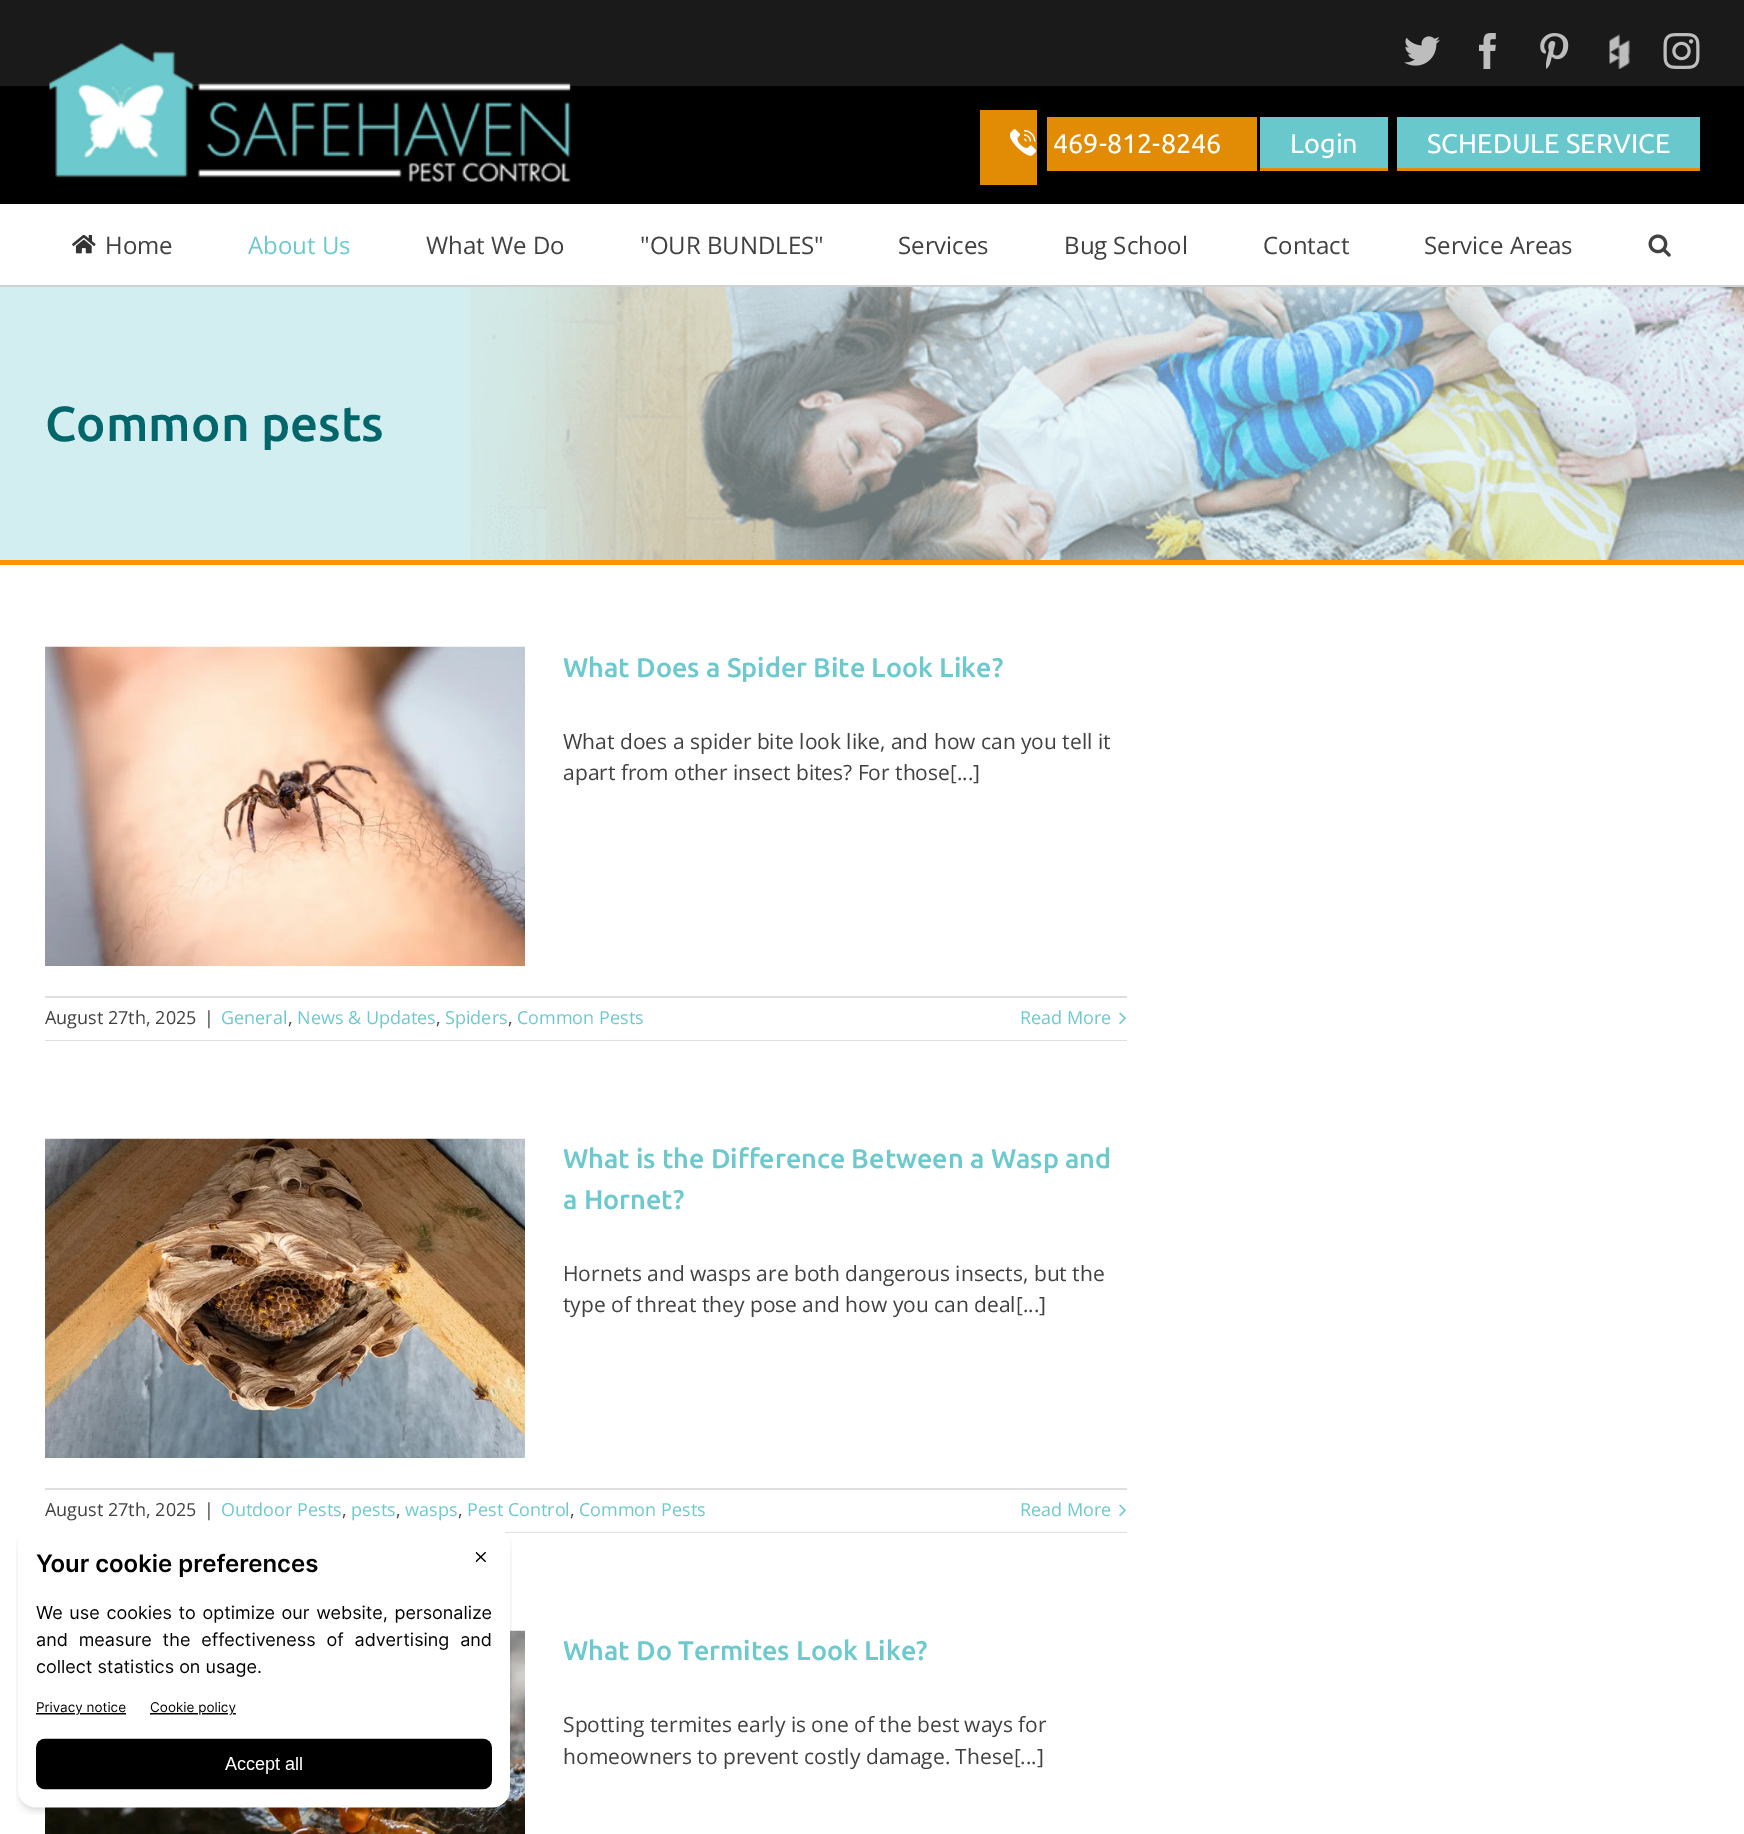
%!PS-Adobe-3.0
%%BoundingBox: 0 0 1744 1834
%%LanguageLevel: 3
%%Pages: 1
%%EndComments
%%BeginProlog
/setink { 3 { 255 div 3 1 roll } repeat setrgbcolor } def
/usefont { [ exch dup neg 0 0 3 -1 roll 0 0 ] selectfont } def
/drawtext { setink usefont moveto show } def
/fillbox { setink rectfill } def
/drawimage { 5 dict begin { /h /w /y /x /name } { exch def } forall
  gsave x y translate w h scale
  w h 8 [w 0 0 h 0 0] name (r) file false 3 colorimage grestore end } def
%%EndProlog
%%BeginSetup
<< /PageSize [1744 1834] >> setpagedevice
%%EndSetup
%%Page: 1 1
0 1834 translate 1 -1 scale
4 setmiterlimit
0 0 1744 1834 255 255 255 fillbox
0 0 1744 86 26 26 26 fillbox
(assets/img1.rgb) 1404 36 36 30 drawimage
(assets/img2.rgb) 1479 33 17 36 drawimage
(assets/img3.rgb) 1540 33 29 36 drawimage
(assets/img4.rgb) 1609 34 21 35 drawimage
(assets/img5.rgb) 1663 33 37 36 drawimage
0 285 1744 2 209 209 209 fillbox
0 86 1744 118 0 0 0 fillbox
(assets/img6.rgb) 49 43 522 139 drawimage
980 110 57 75 226 140 5 fillbox
1047 117 210 54 226 140 5 fillbox
(assets/img7.rgb) 1010 129 27 27 drawimage
(469-812-8246) 1053 153 /Ubuntu-Regular 27 255 255 255 drawtext
1260 117 128 51 105 200 204 fillbox
(Login) 1290 153 /Ubuntu-Regular 27 255 255 255 drawtext
1260 168 128 3 226 140 5 fillbox
1397 117 303 51 105 200 204 fillbox
(SCHEDULE SERVICE) 1427 153 /Ubuntu-Regular 27 255 255 255 drawtext
1397 168 303 3 226 140 5 fillbox
(assets/img8.rgb) 72 234 24 20 drawimage
(Home) 105 254 /OpenSans-Regular 24 65 65 65 drawtext
(About Us) 248 254 /OpenSans-Regular 24 108 201 205 drawtext
(What We Do) 426 254 /OpenSans-Regular 24 65 65 65 drawtext
("OUR BUNDLES") 640 254 /OpenSans-Regular 24 65 65 65 drawtext
(Services) 898 254 /OpenSans-Regular 24 65 65 65 drawtext
(Bug School) 1064 254 /OpenSans-Regular 24 65 65 65 drawtext
(Contact) 1263 254 /OpenSans-Regular 24 65 65 65 drawtext
(Service Areas) 1424 254 /OpenSans-Regular 24 65 65 65 drawtext
(assets/img9.rgb) 1648 234 23 23 drawimage
(assets/img10.rgb) 0 287 1744 273 drawimage
0 560 1744 5 255 148 0 fillbox
(Common pests) 45 441 /Ubuntu-Medium 49.25 3 102 106 drawtext
(assets/img11.rgb) 45 646 480 320 drawimage
(What Does a Spider Bite Look Like?) 563 677 /Ubuntu-Medium 27 108 201 205 drawtext
(What does a spider bite look like, and how can you tell it) 563 749 /OpenSans-Regular 21 65 65 65 drawtext
(apart from other insect bites? For those[...]) 563 780 /OpenSans-Regular 21 65 65 65 drawtext
45 996 1082 2 224 222 222 fillbox
45 1040 1082 1 224 222 222 fillbox
(August 27th, 2025) 45 1024 /OpenSans-Regular 18 65 65 65 drawtext
(|) 204 1024 /OpenSans-Regular 18 65 65 65 drawtext
(General) 221 1024 /OpenSans-Regular 18 108 201 205 drawtext
(,) 288 1024 /OpenSans-Regular 18 65 65 65 drawtext
(News & Updates) 297 1024 /OpenSans-Regular 18 108 201 205 drawtext
(,) 436 1024 /OpenSans-Regular 18 65 65 65 drawtext
(Spiders) 445 1024 /OpenSans-Regular 18 108 201 205 drawtext
(,) 508 1024 /OpenSans-Regular 18 65 65 65 drawtext
(Common Pests) 517 1024 /OpenSans-Regular 18 108 201 205 drawtext
(Read More) 1020 1024 /OpenSans-Regular 18 108 201 205 drawtext
(assets/img12.rgb) 1119 1012 7 13 drawimage
(assets/img13.rgb) 45 1138 480 320 drawimage
(What is the Difference Between a Wasp and) 563 1168 /Ubuntu-Medium 27 108 201 205 drawtext
(a Hornet?) 563 1209 /Ubuntu-Medium 27 108 201 205 drawtext
(Hornets and wasps are both dangerous insects, but the) 563 1281 /OpenSans-Regular 21 65 65 65 drawtext
(type of threat they pose and how you can deal[...]) 563 1312 /OpenSans-Regular 21 65 65 65 drawtext
45 1488 1082 2 224 222 222 fillbox
504 1532 623 1 224 222 222 fillbox
(August 27th, 2025) 45 1516 /OpenSans-Regular 18 65 65 65 drawtext
(|) 204 1516 /OpenSans-Regular 18 65 65 65 drawtext
(Outdoor Pests) 221 1516 /OpenSans-Regular 18 108 201 205 drawtext
(,) 342 1516 /OpenSans-Regular 18 65 65 65 drawtext
(pests) 351 1516 /OpenSans-Regular 18 108 201 205 drawtext
(,) 396 1516 /OpenSans-Regular 18 65 65 65 drawtext
(wasps) 405 1516 /OpenSans-Regular 18 108 201 205 drawtext
(,) 458 1516 /OpenSans-Regular 18 65 65 65 drawtext
(Pest Control) 467 1516 /OpenSans-Regular 18 108 201 205 drawtext
(,) 570 1516 /OpenSans-Regular 18 65 65 65 drawtext
(Common Pests) 579 1516 /OpenSans-Regular 18 108 201 205 drawtext
(Read More) 1020 1516 /OpenSans-Regular 18 108 201 205 drawtext
(assets/img12.rgb) 1119 1504 7 13 drawimage
(assets/img14.rgb) 45 1630 480 204 drawimage
(What Do Termites Look Like?) 563 1660 /Ubuntu-Medium 27 108 201 205 drawtext
(Spotting termites early is one of the best ways for) 563 1732 /OpenSans-Regular 21 65 65 65 drawtext
(homeowners to prevent costly damage. These[...]) 563 1764 /OpenSans-Regular 21 65 65 65 drawtext
(assets/img15.rgb) 16 1532 496 283 drawimage
showpage
%%EOF
